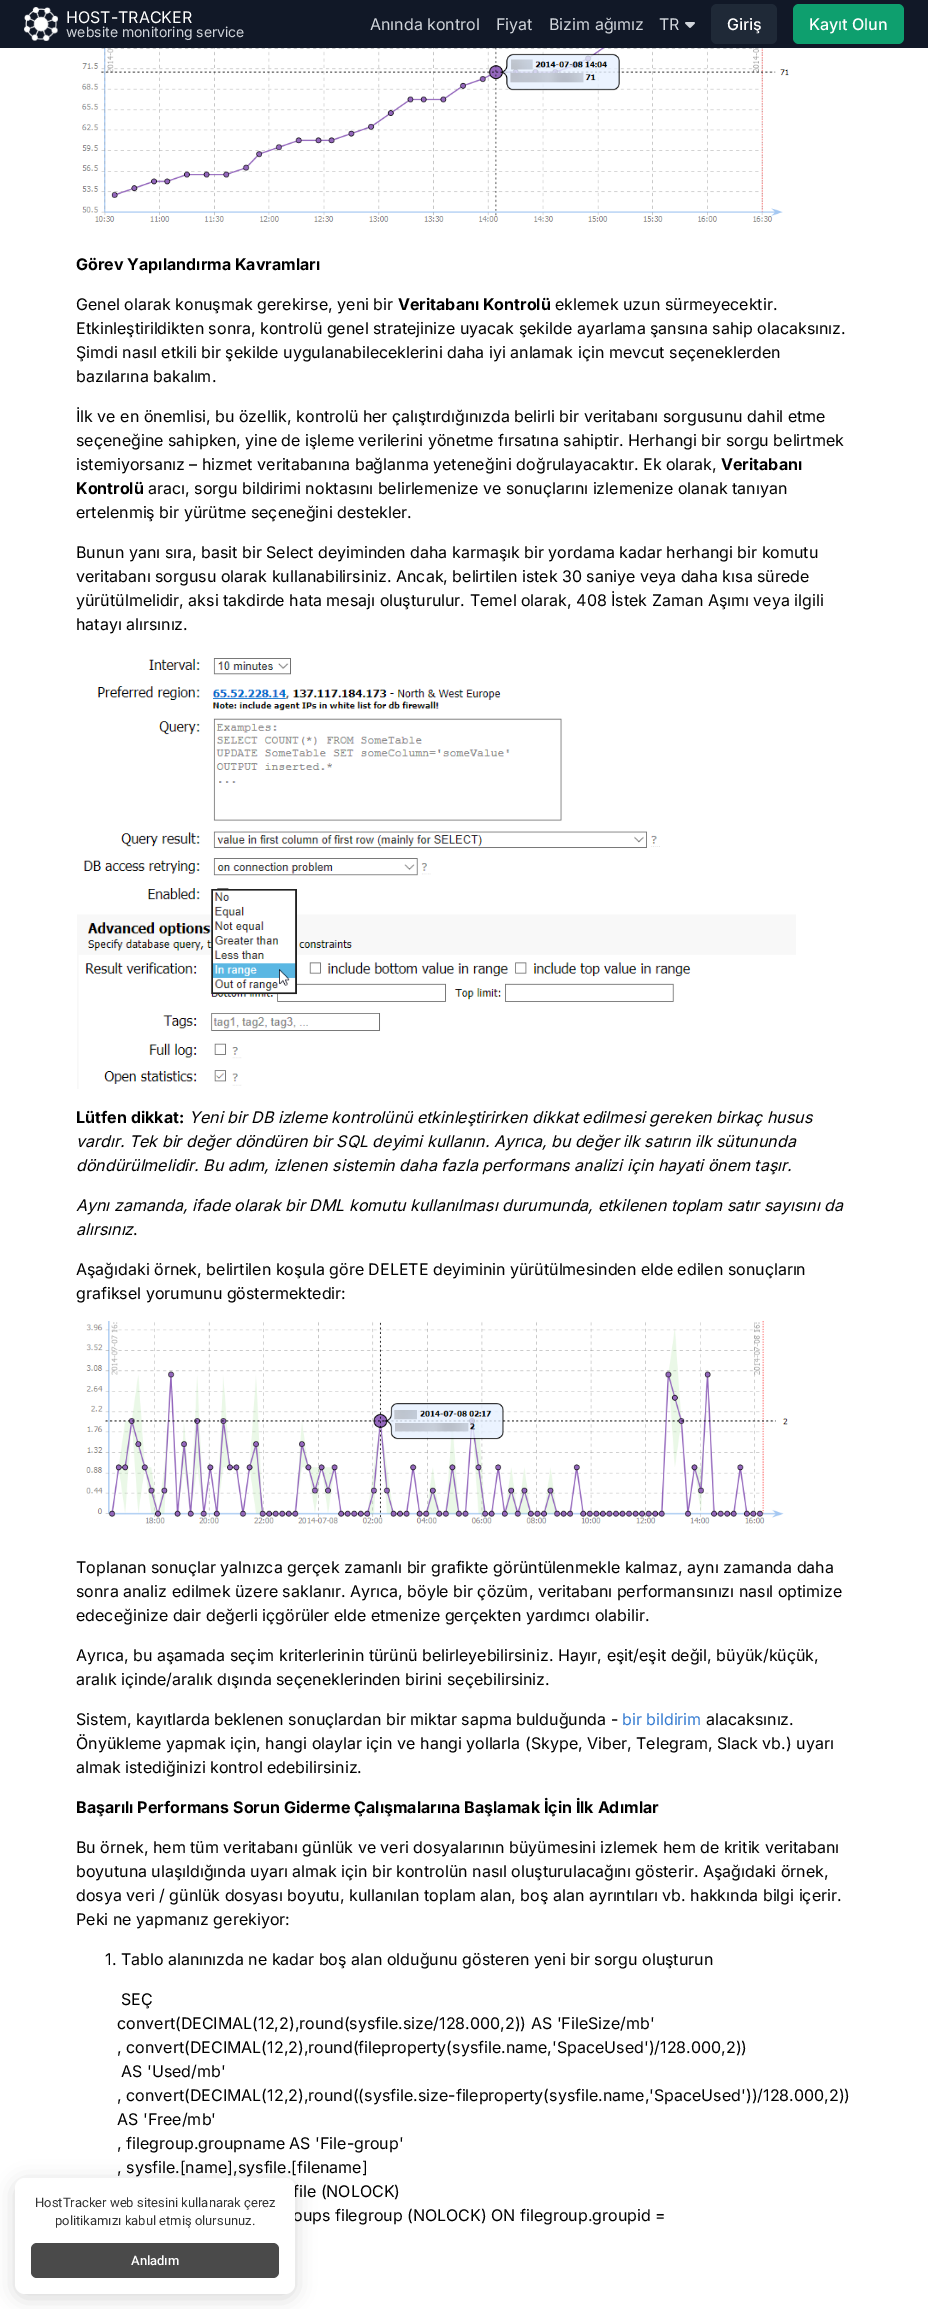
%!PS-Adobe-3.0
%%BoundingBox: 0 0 928 2309
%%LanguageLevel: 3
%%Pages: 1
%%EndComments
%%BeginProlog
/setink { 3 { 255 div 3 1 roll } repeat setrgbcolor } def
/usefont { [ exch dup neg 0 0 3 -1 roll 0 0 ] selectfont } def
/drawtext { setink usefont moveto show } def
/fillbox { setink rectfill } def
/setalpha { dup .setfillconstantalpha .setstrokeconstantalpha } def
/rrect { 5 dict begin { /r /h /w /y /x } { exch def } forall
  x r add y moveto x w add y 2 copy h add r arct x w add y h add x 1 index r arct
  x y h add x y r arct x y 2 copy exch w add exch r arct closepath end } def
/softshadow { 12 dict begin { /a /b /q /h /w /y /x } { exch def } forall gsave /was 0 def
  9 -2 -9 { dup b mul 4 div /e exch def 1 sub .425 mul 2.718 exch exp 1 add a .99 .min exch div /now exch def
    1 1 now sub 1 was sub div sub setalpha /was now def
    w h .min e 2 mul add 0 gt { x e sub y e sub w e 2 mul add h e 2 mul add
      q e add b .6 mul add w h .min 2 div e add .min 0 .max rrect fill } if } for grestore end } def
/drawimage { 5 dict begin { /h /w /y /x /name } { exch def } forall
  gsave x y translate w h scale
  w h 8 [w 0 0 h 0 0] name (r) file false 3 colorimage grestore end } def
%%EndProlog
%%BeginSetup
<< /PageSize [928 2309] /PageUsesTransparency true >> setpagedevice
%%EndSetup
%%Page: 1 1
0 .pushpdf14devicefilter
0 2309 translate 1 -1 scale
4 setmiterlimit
0 0 928 2309 255 255 255 fillbox
0 0 928 48 17 24 39 fillbox
(assets/img1.rgb) 24 7 34 34 drawimage
(HOST-TRACKER) 66 23 /Inter-Regular 16 255 255 255 drawtext
(website monitoring service) 66 37 /Inter-Regular 14 209 213 219 drawtext
(Anında kontrol) 370 30 /Inter-Regular 16 209 213 219 drawtext
(Fiyat) 496 30 /Inter-Regular 16 209 213 219 drawtext
(Bizim ağımız) 549 30 /Inter-Regular 16 209 213 219 drawtext
(TR) 659 30 /Inter-Regular 16 209 213 219 drawtext
(assets/img2.rgb) 685 22 10 6 drawimage
31 41 55 setink
711 4 66 40 6 rrect fill
(Giriş) 727 30 /Inter-Medium 16 255 255 255 drawtext
14 159 110 setink
793 4 111 40 6 rrect fill
(Kayıt Olun) 809 30 /Inter-Medium 16 255 255 255 drawtext
(assets/img3.rgb) 81 48 708 174 drawimage
(Görev Yapılandırma Kavramları) 76 270 /Inter-Bold 16 0 0 0 drawtext
(Genel olarak konuşmak gerekirse, yeni bir) 76 310 /Inter-Regular 16 0 0 0 drawtext
(Veritabanı Kontrolü) 398 310 /Inter-Bold 16 0 0 0 drawtext
(eklemek uzun sürmeyecektir.) 555 310 /Inter-Regular 16 0 0 0 drawtext
(Etkinleştirildikten sonra, kontrolü genel stratejinize uyacak şekilde ayarlama şansına sahip olacaksınız.) 76 334 /Inter-Regular 16 0 0 0 drawtext
(Şimdi nasıl etkili bir şekilde uygulanabileceklerini daha iyi anlamak için mevcut seçeneklerden) 76 358 /Inter-Regular 16 0 0 0 drawtext
(bazılarına bakalım.) 76 382 /Inter-Regular 16 0 0 0 drawtext
(İlk ve en önemlisi, bu özellik, kontrolü her çalıştırdığınızda belirli bir veritabanı sorgusunu dahil etme) 76 422 /Inter-Regular 16 0 0 0 drawtext
(seçeneğine sahipken, yine de işleme verilerini yönetme fırsatına sahiptir. Herhangi bir sorgu belirtmek) 76 446 /Inter-Regular 16 0 0 0 drawtext
(istemiyorsanız – hizmet veritabanına bağlanma yeteneğini doğrulayacaktır. Ek olarak,) 76 470 /Inter-Regular 16 0 0 0 drawtext
(Veritabanı) 721 470 /Inter-Bold 16 0 0 0 drawtext
(Kontrolü) 76 494 /Inter-Bold 16 0 0 0 drawtext
(aracı, sorgu bildirimi noktasını belirlemenize ve sonuçlarını izlemenize olanak tanıyan) 148 494 /Inter-Regular 16 0 0 0 drawtext
(ertelenmiş bir yürütme seçeneğini destekler.) 76 518 /Inter-Regular 16 0 0 0 drawtext
(Bunun yanı sıra, basit bir Select deyiminden daha karmaşık bir yordama kadar herhangi bir komutu) 76 558 /Inter-Regular 16 0 0 0 drawtext
(veritabanı sorgusu olarak kullanabilirsiniz. Ancak, belirtilen istek 30 saniye veya daha kısa sürede) 76 582 /Inter-Regular 16 0 0 0 drawtext
(yürütülmelidir, aksi takdirde hata mesajı oluşturulur. Temel olarak, 408 İstek Zaman Aşımı veya ilgili) 76 606 /Inter-Regular 16 0 0 0 drawtext
(hatayı alırsınız.) 76 630 /Inter-Regular 16 0 0 0 drawtext
(assets/img4.rgb) 77 658 719 431 drawimage
(Lütfen dikkat:) 76 1123 /Inter-Bold 16 0 0 0 drawtext
(Yeni bir DB izleme kontrolünü etkinleştirirken dikkat edilmesi gereken birkaç husus) 189 1123 /Inter-Italic 16 0 0 0 drawtext
(vardır. Tek bir değer döndüren bir SQL deyimi kullanın. Ayrıca, bu değer ilk satırın ilk sütununda) 76 1147 /Inter-Italic 16 0 0 0 drawtext
(döndürülmelidir. Bu adım, izlenen sistemin daha fazla performans analizi için hayati önem taşır.) 76 1171 /Inter-Italic 16 0 0 0 drawtext
(Aynı zamanda, ifade olarak bir DML komutu kullanılması durumunda, etkilenen toplam satır sayısını da) 76 1211 /Inter-Italic 16 0 0 0 drawtext
(alırsınız) 76 1235 /Inter-Italic 16 0 0 0 drawtext
(.) 133 1235 /Inter-Regular 16 0 0 0 drawtext
(Aşağıdaki örnek, belirtilen koşula göre DELETE deyiminin yürütülmesinden elde edilen sonuçların) 76 1275 /Inter-Regular 16 0 0 0 drawtext
(grafiksel yorumunu göstermektedir:) 76 1299 /Inter-Regular 16 0 0 0 drawtext
(assets/img5.rgb) 86 1321 702 203 drawimage
(Toplanan sonuçlar yalnızca gerçek zamanlı bir grafikte görüntülenmekle kalmaz, aynı zamanda daha) 76 1573 /Inter-Regular 16 0 0 0 drawtext
(sonra analiz edilmek üzere saklanır. Ayrıca, böyle bir çözüm, veritabanı performansınızı nasıl optimize) 76 1597 /Inter-Regular 16 0 0 0 drawtext
(edeceğinize dair değerli içgörüler elde etmenize gerçekten yardımcı olabilir.) 76 1621 /Inter-Regular 16 0 0 0 drawtext
(Ayrıca, bu aşamada seçim kriterlerinin türünü belirleyebilirsiniz. Hayır, eşit/eşit değil, büyük/küçük,) 76 1661 /Inter-Regular 16 0 0 0 drawtext
(aralık içinde/aralık dışında seçeneklerinden birini seçebilirsiniz.) 76 1685 /Inter-Regular 16 0 0 0 drawtext
(Sistem, kayıtlarda beklenen sonuçlardan bir miktar sapma bulduğunda -) 76 1725 /Inter-Regular 16 0 0 0 drawtext
(bir bildirim) 622 1725 /Inter-Regular 16 54 124 209 drawtext
(alacaksınız.) 706 1725 /Inter-Regular 16 0 0 0 drawtext
(Önyükleme yapmak için, hangi olaylar için ve hangi yollarla \(Skype, Viber, Telegram, Slack vb.\) uyarı) 76 1749 /Inter-Regular 16 0 0 0 drawtext
(almak istediğinizi kontrol edebilirsiniz.) 76 1773 /Inter-Regular 16 0 0 0 drawtext
(Başarılı Performans Sorun Giderme Çalışmalarına Başlamak İçin İlk Adımlar) 76 1813 /Inter-Bold 16 0 0 0 drawtext
(Bu örnek, hem tüm veritabanı günlük ve veri dosyalarının büyümesini izlemek hem de kritik veritabanı) 76 1853 /Inter-Regular 16 0 0 0 drawtext
(boyutuna ulaşıldığında uyarı almak için bir kontrolün nasıl oluşturulacağını gösterir. Aşağıdaki örnek,) 76 1877 /Inter-Regular 16 0 0 0 drawtext
(dosya veri / günlük dosyası boyutu, kullanılan toplam alan, boş alan ayrıntıları vb. hakkında bilgi içerir.) 76 1901 /Inter-Regular 16 0 0 0 drawtext
(Peki ne yapmanız gerekiyor:) 76 1925 /Inter-Regular 16 0 0 0 drawtext
(1. Tablo alanınızda ne kadar boş alan olduğunu gösteren yeni bir sorgu oluşturun) 105 1965 /Inter-Regular 16 0 0 0 drawtext
(SEÇ) 121 2005 /Inter-Regular 16 0 0 0 drawtext
(convert\(DECIMAL\(12,2\),round\(sysfile.size/128.000,2\)\) AS 'FileSize/mb') 117 2029 /Inter-Regular 16 0 0 0 drawtext
(, convert\(DECIMAL\(12,2\),round\(fileproperty\(sysfile.name,'SpaceUsed'\)/128.000,2\)\)) 117 2053 /Inter-Regular 16 0 0 0 drawtext
(AS 'Used/mb') 121 2077 /Inter-Regular 16 0 0 0 drawtext
(, convert\(DECIMAL\(12,2\),round\(\(sysfile.size-fileproperty\(sysfile.name,'SpaceUsed'\)\)/128.000,2\)\)) 117 2101 /Inter-Regular 16 0 0 0 drawtext
(AS 'Free/mb') 117 2125 /Inter-Regular 16 0 0 0 drawtext
(, filegroup.groupname AS 'File-group') 117 2149 /Inter-Regular 16 0 0 0 drawtext
(, sysfile.[name],sysfile.[filename]) 117 2173 /Inter-Regular 16 0 0 0 drawtext
(file \(NOLOCK\)) 293 2197 /Inter-Regular 16 0 0 0 drawtext
(oups filegroup \(NOLOCK\) ON filegroup.groupid =) 293 2221 /Inter-Regular 16 0 0 0 drawtext
15 2182 280 116 10 10 0.15 softshadow
255 255 255 setink
15 2178 280 116 10 rrect fill
(HostTracker web sitesini kullanarak çerez) 35 2207 /Roboto-Regular 13 51 51 51 drawtext
(politikamızı kabul etmiş olursunuz.) 55 2225 /Roboto-Regular 13 51 51 51 drawtext
74 74 74 setink
31 2243 248 35 6 rrect fill
(Anladım) 131 2265 /Roboto-Medium 13 255 255 255 drawtext
.poppdf14devicefilter showpage
%%EOF
